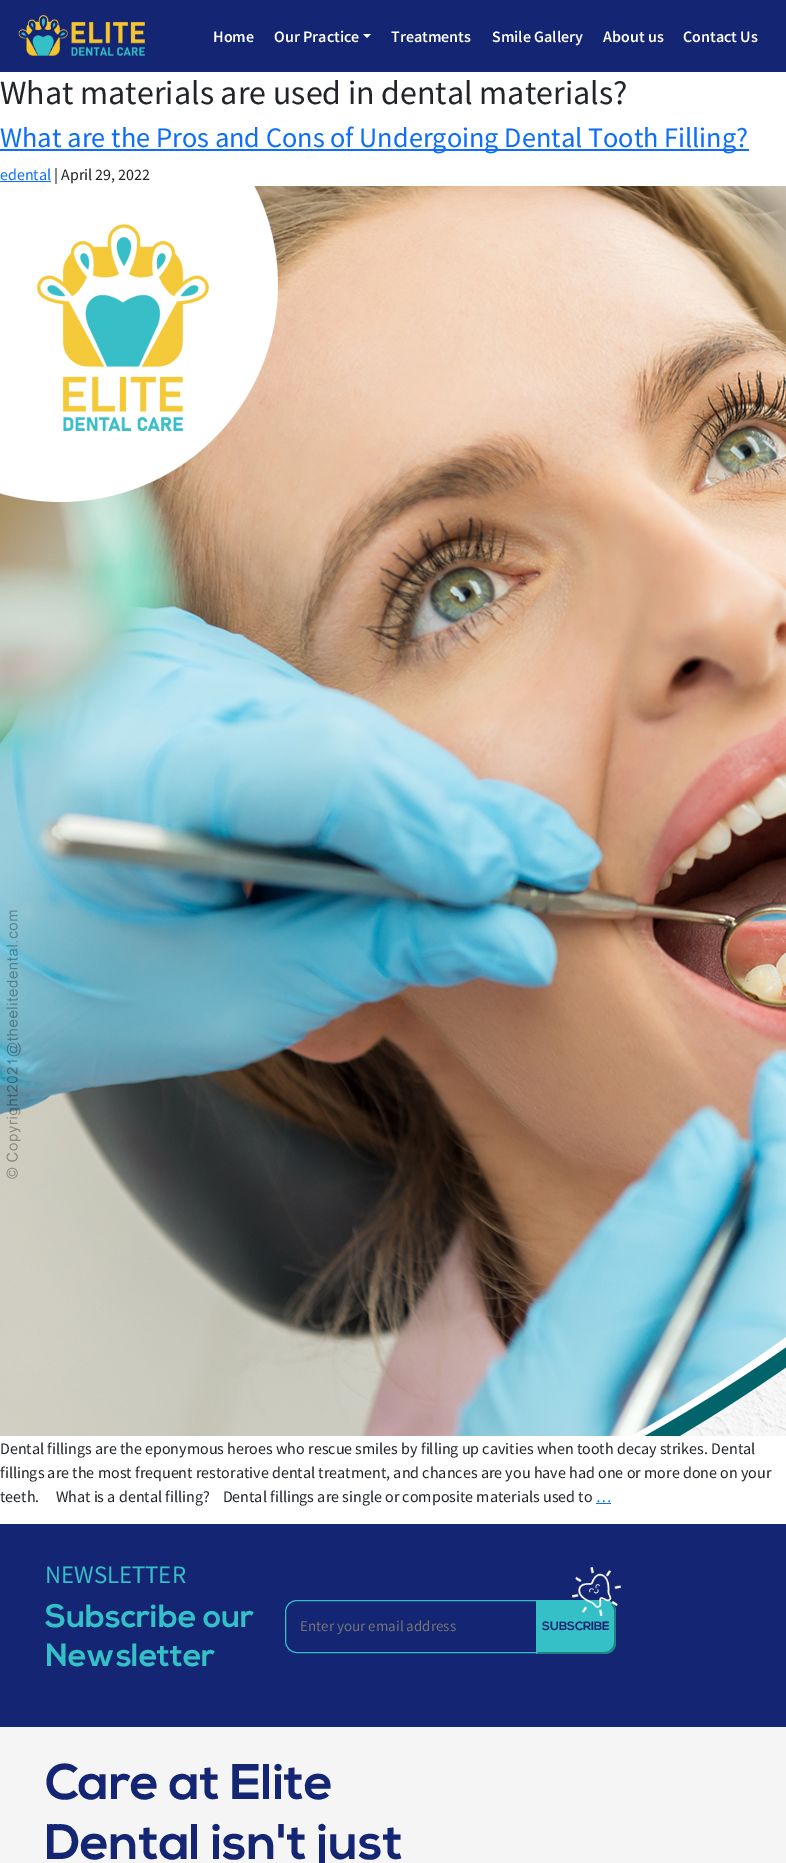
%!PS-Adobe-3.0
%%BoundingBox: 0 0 786 1863
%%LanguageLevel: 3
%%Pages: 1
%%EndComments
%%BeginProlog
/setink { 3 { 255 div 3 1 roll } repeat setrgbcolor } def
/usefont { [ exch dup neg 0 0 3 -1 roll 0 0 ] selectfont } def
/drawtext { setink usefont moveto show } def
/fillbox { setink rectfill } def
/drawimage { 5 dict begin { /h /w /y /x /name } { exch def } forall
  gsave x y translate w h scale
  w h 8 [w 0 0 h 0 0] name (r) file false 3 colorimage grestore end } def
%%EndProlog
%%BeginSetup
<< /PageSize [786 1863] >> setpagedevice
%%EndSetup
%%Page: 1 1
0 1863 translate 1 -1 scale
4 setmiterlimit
0 0 786 1863 255 255 255 fillbox
0 0 786 72 19 37 115 fillbox
(assets/img1.rgb) 18 15 127 41 drawimage
(Home) 213 42 /SourceSansPro-SemiBold 16 255 255 255 drawtext
(Our Practice) 274 42 /SourceSansPro-SemiBold 16 255 255 255 drawtext
363 34 moveto 371 34 lineto 367 38 lineto closepath fill
(Treatments) 391 42 /SourceSansPro-SemiBold 16 255 255 255 drawtext
(Smile Gallery) 492 42 /SourceSansPro-SemiBold 16 255 255 255 drawtext
(About us) 603 42 /SourceSansPro-SemiBold 16 255 255 255 drawtext
(Contact Us) 683 42 /SourceSansPro-SemiBold 16 255 255 255 drawtext
(What materials are used in dental materials?) 0 104 /SourceSansPro-Regular 33.75 33 37 41 drawtext
0 149 749 2 13 110 253 fillbox
(What are the Pros and Cons of Undergoing Dental Tooth Filling?) 0 147 /SourceSansPro-Regular 28.25 13 110 253 drawtext
(edental) 0 180 /SourceSansPro-Regular 16 13 110 253 drawtext
0 181 51 1 13 110 253 fillbox
(| April 29, 2022) 54 180 /SourceSansPro-Regular 16 33 37 41 drawtext
(assets/img2.rgb) 0 186 786 1250 drawimage
(Dental fillings are the eponymous heroes who rescue smiles by filling up cavities when tooth decay strikes. Dental) 0 1454 /SourceSansPro-Regular 16 33 37 41 drawtext
(fillings are the most frequent restorative dental treatment, and chances are you have had one or more done on your) 0 1478 /SourceSansPro-Regular 16 33 37 41 drawtext
(teeth.     What is a dental filling?    Dental fillings are single or composite materials used to) 0 1502 /SourceSansPro-Regular 16 33 37 41 drawtext
(…) 596 1502 /SourceSansPro-Regular 16 13 110 253 drawtext
596 1503 15 1 13 110 253 fillbox
0 1524 786 203 19 37 115 fillbox
(NEWSLETTER) 45 1583 /SourceSansPro-Regular 25 52 192 198 drawtext
(Subscribe our) 45 1627 /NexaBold-Bold 32 52 192 198 drawtext
(Newsletter) 45 1666 /NexaBold-Bold 32 52 192 198 drawtext
297 1600.5 moveto 536.5 1600.5 lineto 536.5 1652.5 lineto 297 1652.5 lineto 290.5 1652.5 285.5 1647.5 285.5 1641 curveto 285.5 1612 lineto 285.5 1605.5 290.5 1600.5 297 1600.5 curveto closepath stroke
(Enter your email address) 300 1631 /SourceSansPro-Regular 15 117 117 117 drawtext
52 192 198 setink
536 1600 moveto 604 1600 lineto 610.5 1600 616 1605.5 616 1612 curveto 616 1642 lineto 616 1648.5 610.5 1654 604 1654 curveto 536 1654 lineto closepath fill
536 1600 moveto 538 1602 lineto 604 1602 lineto 607 1602 610 1603 611 1605 curveto 613 1603 lineto 610 1601 608 1600 604 1600 curveto closepath fill
35 128 132 setink
616 1642 moveto 616 1612 lineto 616 1608 615 1606 613 1603 curveto 611 1605 lineto 613 1606 614 1609 614 1612 curveto 614 1642 lineto 614 1645 613 1648 611 1649 curveto 613 1651 lineto 615 1648 616 1646 616 1642 curveto closepath fill
604 1654 moveto 608 1654 610 1653 613 1651 curveto 611 1649 lineto 610 1651 607 1652 604 1652 curveto 538 1652 lineto 536 1654 lineto closepath fill
52 192 198 setink
536 1600 moveto 536 1654 lineto 538 1652 lineto 538 1602 lineto closepath fill
(SUBSCRIBE) 542 1630 /NexaBold-Bold 12 19 37 115 drawtext
(assets/img3.rgb) 572 1567 49 49 drawimage
0 1727 786 136 245 245 245 fillbox
(Care at Elite) 45 1799 /NexaBold-Bold 50 19 37 115 drawtext
(Dental isn't just) 45 1859 /NexaBold-Bold 50 19 37 115 drawtext
showpage
%%EOF
